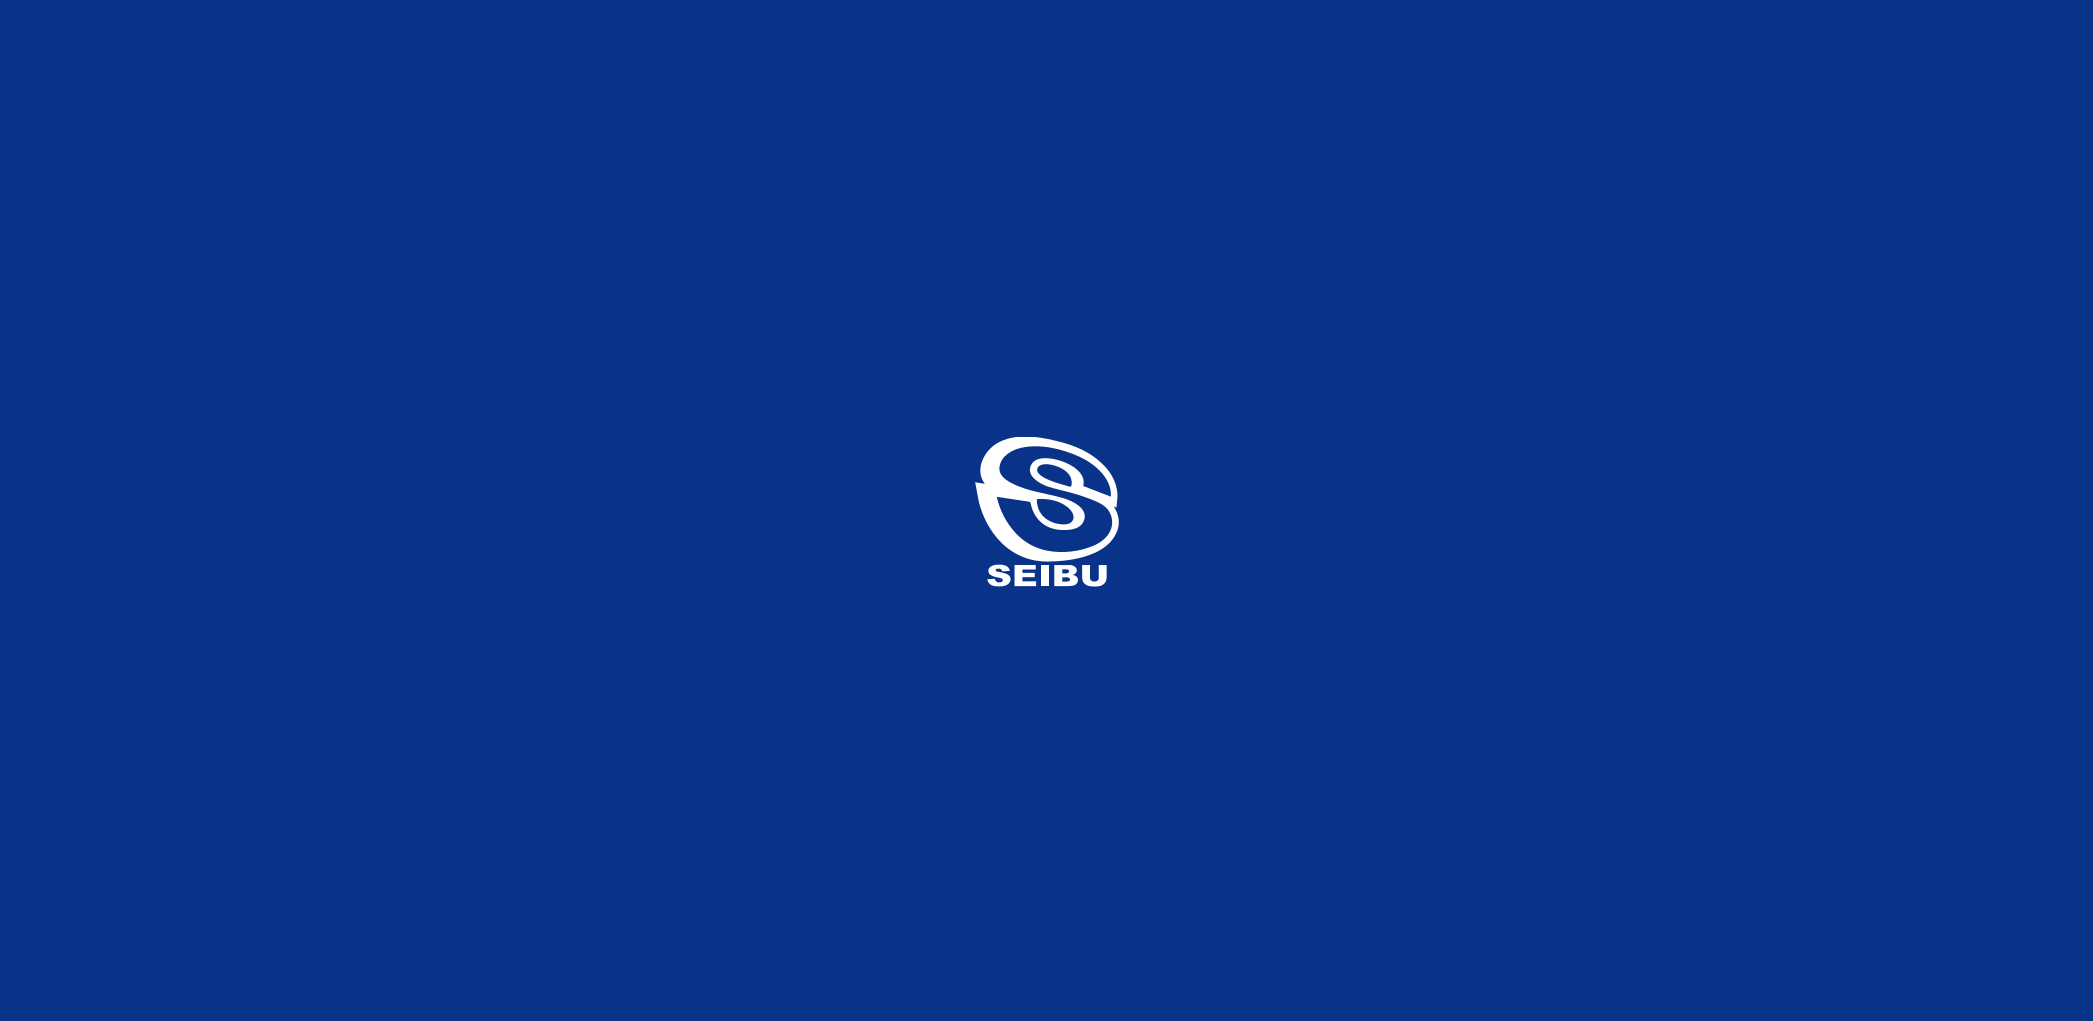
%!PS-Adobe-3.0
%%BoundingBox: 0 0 2093 1021
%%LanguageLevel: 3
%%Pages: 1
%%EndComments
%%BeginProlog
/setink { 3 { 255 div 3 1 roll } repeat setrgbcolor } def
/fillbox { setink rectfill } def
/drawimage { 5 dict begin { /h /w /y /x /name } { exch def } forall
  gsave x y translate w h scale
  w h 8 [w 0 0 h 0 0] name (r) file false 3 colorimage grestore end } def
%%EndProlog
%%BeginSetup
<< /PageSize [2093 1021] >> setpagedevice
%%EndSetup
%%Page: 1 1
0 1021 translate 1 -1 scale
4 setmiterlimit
0 0 2093 1021 8 51 136 fillbox
(assets/img1.rgb) 975 437 144 150 drawimage
showpage
%%EOF
